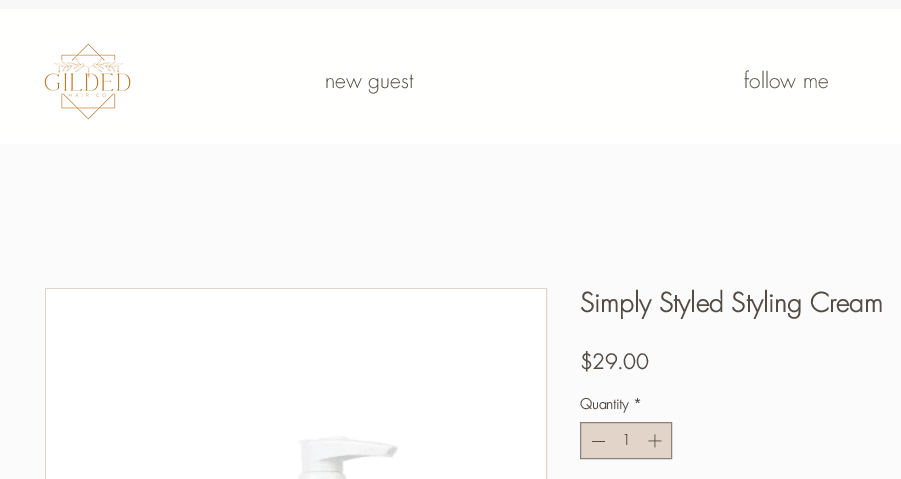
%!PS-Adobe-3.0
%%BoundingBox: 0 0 901 479
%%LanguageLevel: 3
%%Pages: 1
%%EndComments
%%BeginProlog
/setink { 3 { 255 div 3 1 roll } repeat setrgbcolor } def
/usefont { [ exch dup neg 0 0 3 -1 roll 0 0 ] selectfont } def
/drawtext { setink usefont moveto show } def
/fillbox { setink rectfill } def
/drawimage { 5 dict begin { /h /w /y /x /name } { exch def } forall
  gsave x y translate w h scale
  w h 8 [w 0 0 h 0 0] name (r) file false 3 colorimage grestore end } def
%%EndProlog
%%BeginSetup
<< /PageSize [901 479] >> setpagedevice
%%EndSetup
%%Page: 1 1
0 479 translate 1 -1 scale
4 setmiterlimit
0 0 901 479 251 251 251 fillbox
0 9 901 130 255 255 254 fillbox
0 0 901 9 248 248 248 fillbox
(assets/img1.rgb) 44 43 87 77 drawimage
(new guest) 325 88 /futura-Light 21 84 76 68 drawtext
(follow me) 744 88 /futura-Light 21 84 76 68 drawtext
0 139 901 5 255 255 255 fillbox
226 212 201 setink
45.5 288.5 501 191 rectstroke
(assets/img2.rgb) 46 289 500 190 drawimage
(Simply Styled Styling Cream) 580 312 /futura-Bold 26 84 76 68 drawtext
($29.00) 580 369 /futura-Bold 20 84 76 68 drawtext
(Quantity) 580 409 /futura-Bold 14 84 76 68 drawtext
(*) 633 409 /futura-Bold 14 84 76 68 drawtext
226 212 201 setink
580.5 422.5 moveto 671.5 422.5 lineto 671.5 458.5 lineto 580.5 458.5 lineto closepath gsave fill grestore
141 130 121 setink
stroke
592 441 13 1 84 76 68 fillbox
(1) 622 445 /futura-Bold 14 84 76 68 drawtext
(assets/img3.rgb) 648 434 14 14 drawimage
showpage
%%EOF
